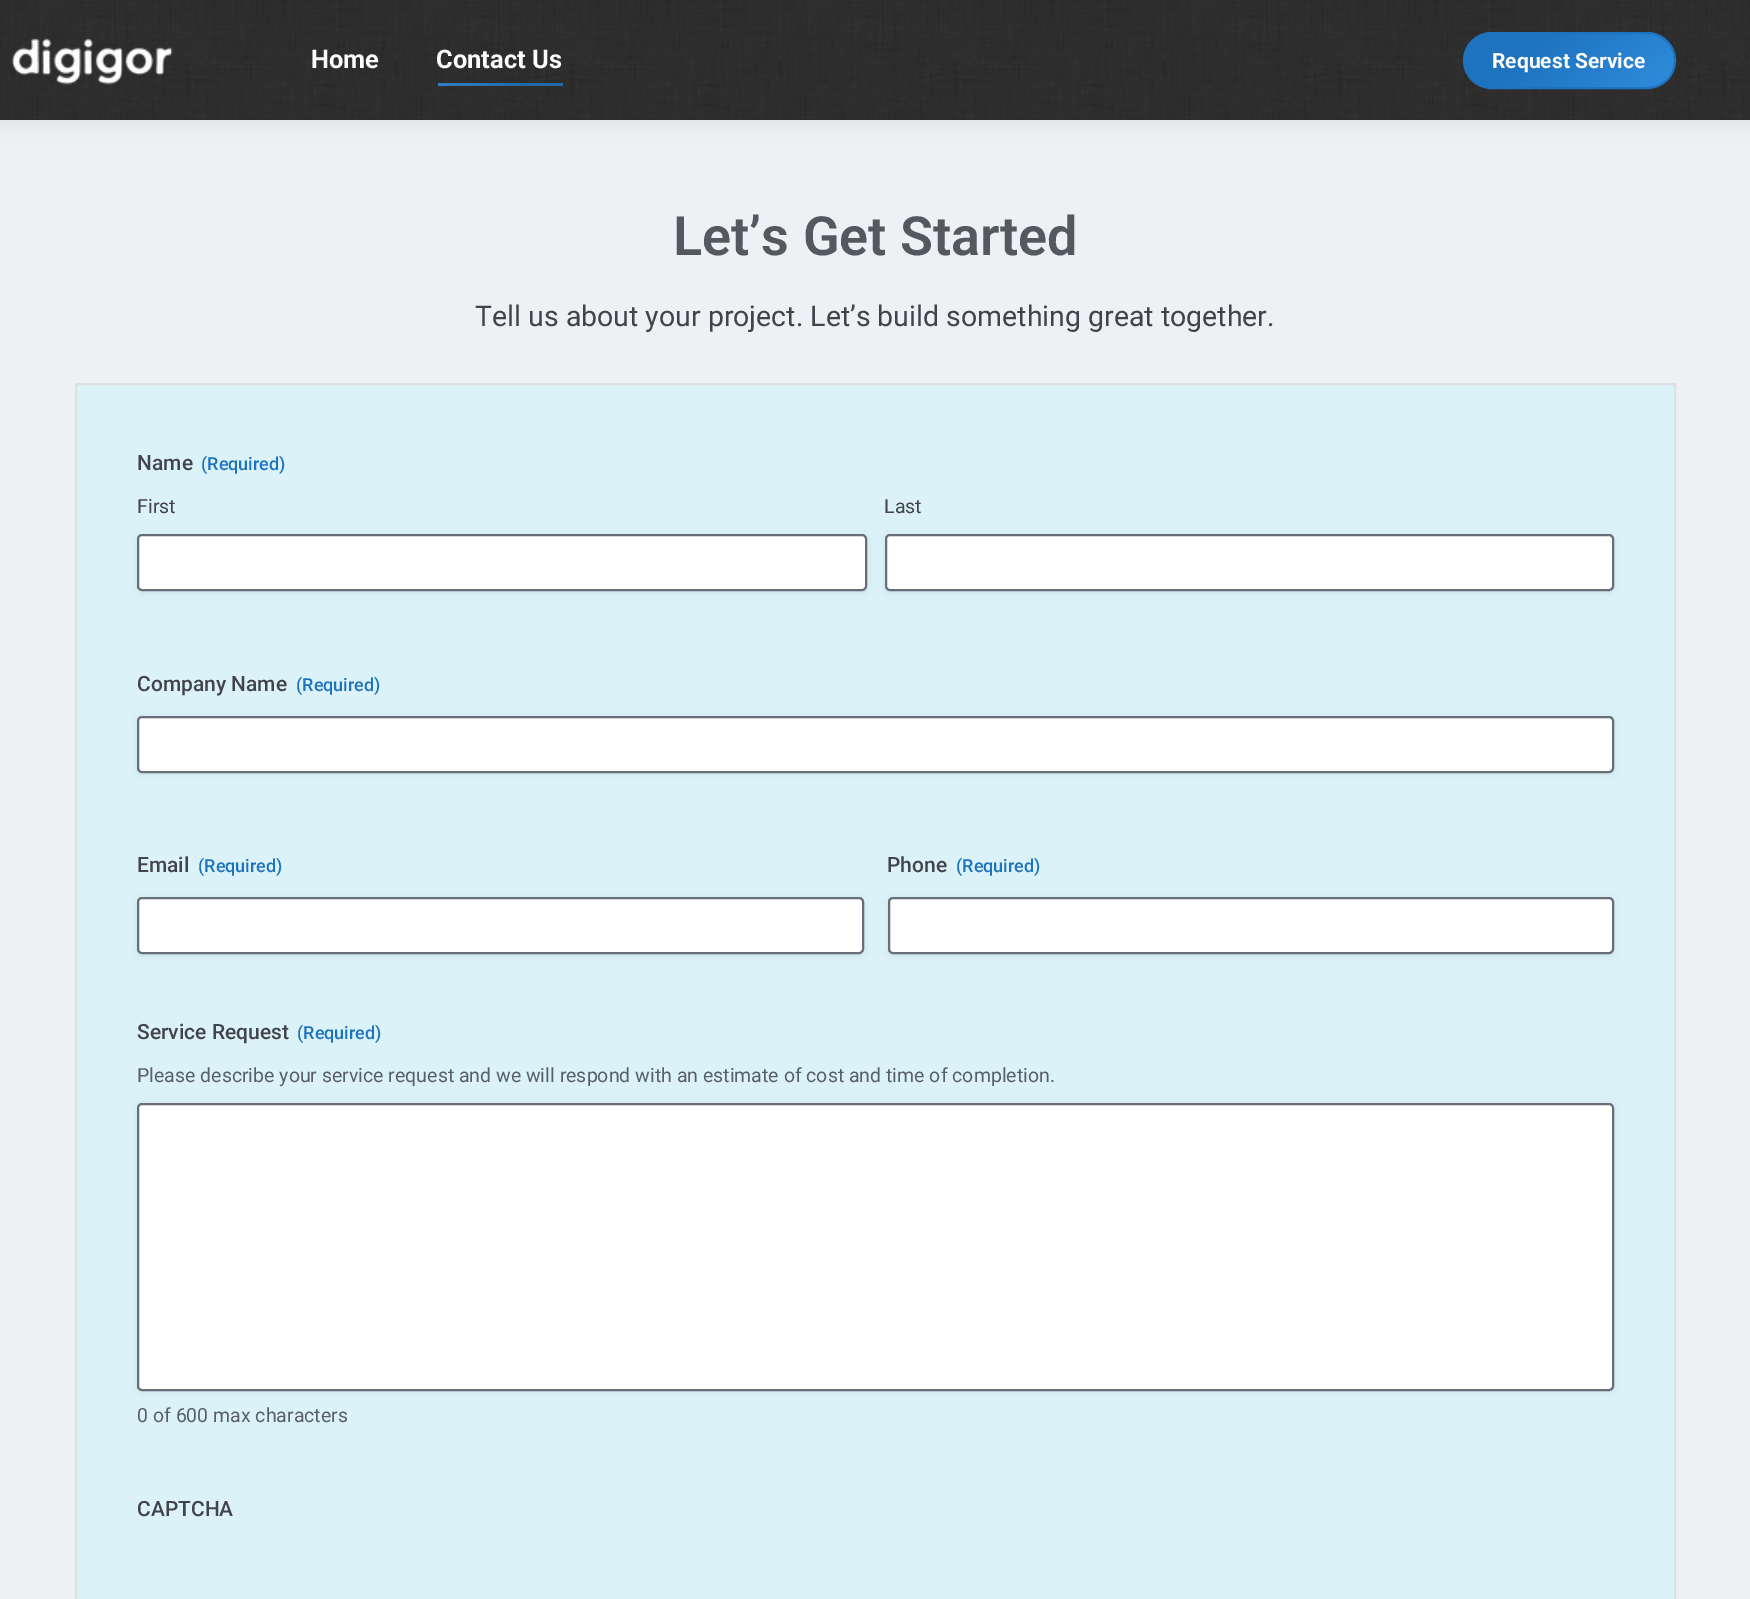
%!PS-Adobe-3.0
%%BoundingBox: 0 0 1750 1599
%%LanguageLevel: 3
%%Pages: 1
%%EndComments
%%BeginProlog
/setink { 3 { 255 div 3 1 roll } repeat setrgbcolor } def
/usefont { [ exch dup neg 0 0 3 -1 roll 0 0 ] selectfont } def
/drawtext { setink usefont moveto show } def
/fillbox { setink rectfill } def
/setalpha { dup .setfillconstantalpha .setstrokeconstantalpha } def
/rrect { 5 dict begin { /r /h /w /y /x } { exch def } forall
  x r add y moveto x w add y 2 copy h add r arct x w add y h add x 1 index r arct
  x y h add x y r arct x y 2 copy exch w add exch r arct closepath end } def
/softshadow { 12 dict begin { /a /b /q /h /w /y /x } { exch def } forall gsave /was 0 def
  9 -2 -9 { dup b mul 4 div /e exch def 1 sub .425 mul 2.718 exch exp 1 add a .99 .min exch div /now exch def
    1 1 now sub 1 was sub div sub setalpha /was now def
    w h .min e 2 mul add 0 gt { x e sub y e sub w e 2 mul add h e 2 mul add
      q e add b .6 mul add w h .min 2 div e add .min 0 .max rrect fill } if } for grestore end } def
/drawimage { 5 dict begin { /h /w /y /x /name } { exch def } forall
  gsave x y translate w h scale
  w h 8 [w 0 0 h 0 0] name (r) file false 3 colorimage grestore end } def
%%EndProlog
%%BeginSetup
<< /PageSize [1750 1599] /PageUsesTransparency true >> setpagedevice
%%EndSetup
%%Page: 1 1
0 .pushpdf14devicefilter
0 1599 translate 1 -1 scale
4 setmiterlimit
0 0 1750 1599 238 241 243 fillbox
0 0 0 setink
-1 -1 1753 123 0 11 0.07 softshadow
(assets/img1.rgb) 0 0 1750 120 drawimage
(assets/img2.rgb) 11 38 162 49 drawimage
(Home) 311 68 /Roboto-Bold 25.5 252 252 252 drawtext
(Contact Us) 436 68 /Roboto-Bold 25.5 252 252 252 drawtext
gsave 1464 33 211 55 27.5 rrect clip newpath
<< /ShadingType 2 /ColorSpace /DeviceRGB /Coords [1502 -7.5 1637 128] /Extend [true true] /Function << /FunctionType 3 /Domain [0 1] /Functions [<< /FunctionType 2 /Domain [0 1] /C0 [0.118 0.451 0.745] /C1 [0.118 0.451 0.745] /N 1 >> << /FunctionType 2 /Domain [0 1] /C0 [0.118 0.451 0.745] /C1 [0.188 0.553 0.867] /N 1 >>] /Bounds [0.3] /Encode [0 1 0 1] >> >> shfill grestore
30 115 190 setink
2 setlinewidth
1464 33 211 55 27.5 rrect stroke
(Request Service) 1492 68 /Roboto-Bold 21 252 252 252 drawtext
(Let’s Get Started) 673 255 /Roboto-SemiBold 54 84 89 95 drawtext
(Tell us about your project. Let’s build something great together.) 475 326 /Roboto-Regular 28.5 66 67 76 drawtext
219 243 248 setink
76 384 moveto 1675 384 lineto 1675 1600 lineto 76 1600 lineto closepath gsave fill grestore
221 223 224 setink
stroke
(Name) 137 470 /Roboto-Medium 21 66 67 76 drawtext
(\(Required\)) 201 470 /Roboto-Medium 18 30 115 190 drawtext
(First) 137 513 /Roboto-Regular 19.5 66 67 76 drawtext
18 25 97 setink
137 536 730 57 5 3 0.08 softshadow
255 255 255 setink
138 535 728 55 4 rrect gsave fill grestore
104 110 119 setink
stroke
(Last) 884 513 /Roboto-Regular 19.5 66 67 76 drawtext
18 25 97 setink
885 536 729 57 5 3 0.08 softshadow
255 255 255 setink
886 535 727 55 4 rrect gsave fill grestore
104 110 119 setink
stroke
(Company Name) 137 691 /Roboto-Medium 21 66 67 76 drawtext
(\(Required\)) 296 691 /Roboto-Medium 18 30 115 190 drawtext
18 25 97 setink
137 717 1477 57 5 3 0.08 softshadow
255 255 255 setink
138 717 1475 55 4 rrect gsave fill grestore
104 110 119 setink
stroke
(Email) 137 872 /Roboto-Medium 21 66 67 76 drawtext
(\(Required\)) 198 872 /Roboto-Medium 18 30 115 190 drawtext
18 25 97 setink
137 899 727 57 5 3 0.08 softshadow
255 255 255 setink
138 898 725 55 4 rrect gsave fill grestore
104 110 119 setink
stroke
(Phone) 887 872 /Roboto-Medium 21 66 67 76 drawtext
(\(Required\)) 956 872 /Roboto-Medium 18 30 115 190 drawtext
18 25 97 setink
888 899 726 57 5 3 0.08 softshadow
255 255 255 setink
889 898 724 55 4 rrect gsave fill grestore
104 110 119 setink
stroke
(Service Request) 137 1039 /Roboto-Medium 21 66 67 76 drawtext
(\(Required\)) 297 1039 /Roboto-Medium 18 30 115 190 drawtext
(Please describe your service request and we will respond with an estimate of cost and time of completion.) 137 1082 /Roboto-Regular 19.5 88 94 106 drawtext
18 25 97 setink
137 1104 1477 288 5 3 0.08 softshadow
255 255 255 setink
138 1104 1475 286 4 rrect gsave fill grestore
104 110 119 setink
stroke
(0 of 600 max characters) 137 1422 /Roboto-Regular 19.5 88 94 106 drawtext
(CAPTCHA) 137 1516 /Roboto-Medium 21 66 67 76 drawtext
.poppdf14devicefilter showpage
%%EOF
